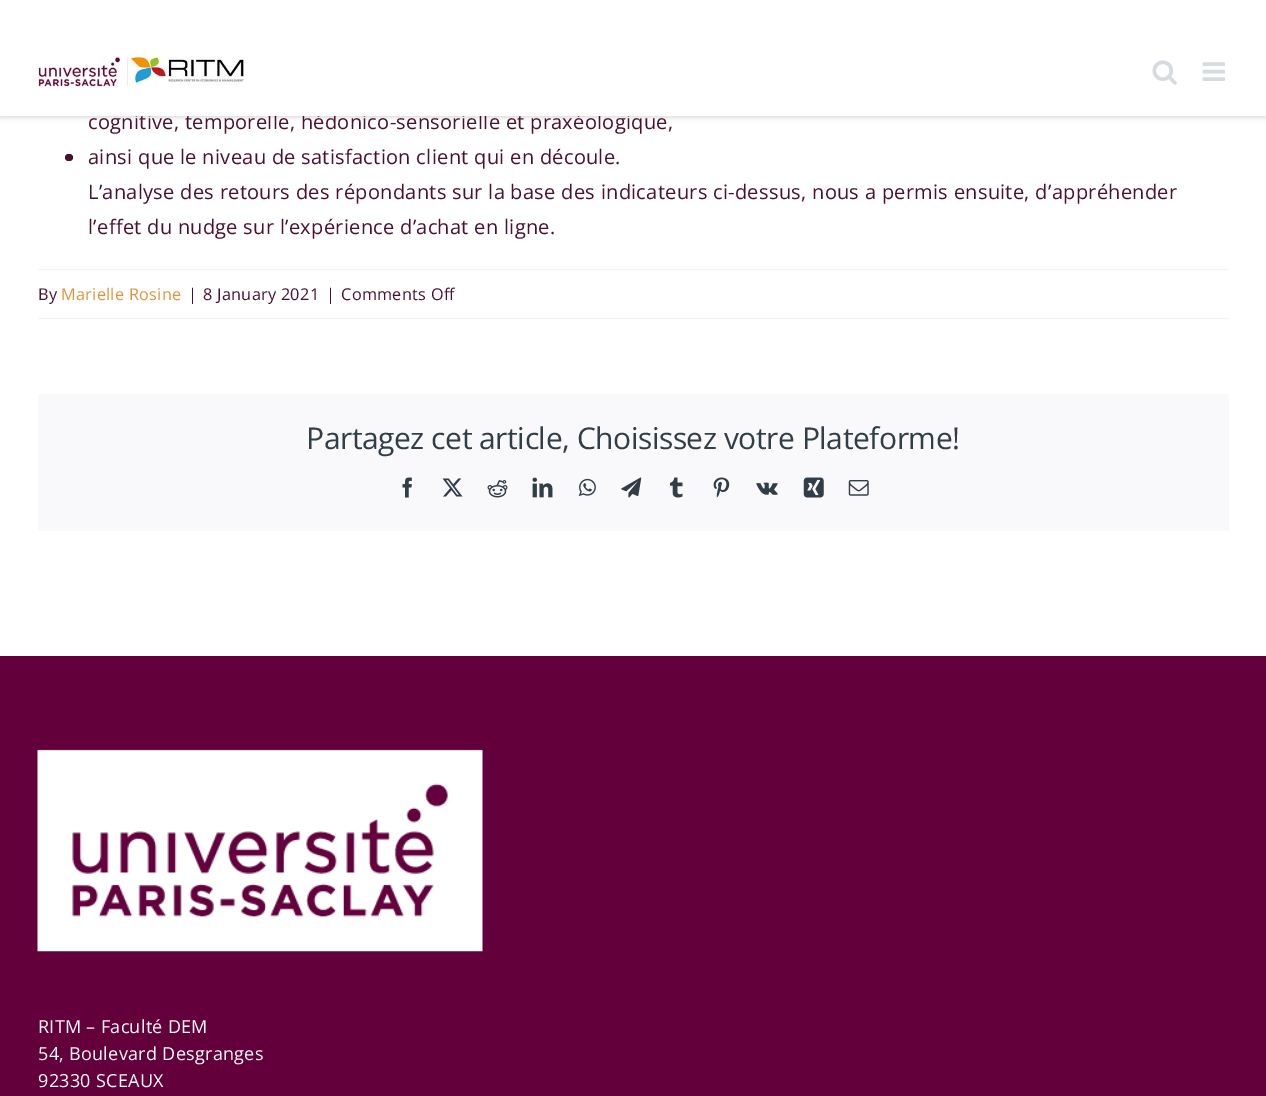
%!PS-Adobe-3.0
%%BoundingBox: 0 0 1266 1096
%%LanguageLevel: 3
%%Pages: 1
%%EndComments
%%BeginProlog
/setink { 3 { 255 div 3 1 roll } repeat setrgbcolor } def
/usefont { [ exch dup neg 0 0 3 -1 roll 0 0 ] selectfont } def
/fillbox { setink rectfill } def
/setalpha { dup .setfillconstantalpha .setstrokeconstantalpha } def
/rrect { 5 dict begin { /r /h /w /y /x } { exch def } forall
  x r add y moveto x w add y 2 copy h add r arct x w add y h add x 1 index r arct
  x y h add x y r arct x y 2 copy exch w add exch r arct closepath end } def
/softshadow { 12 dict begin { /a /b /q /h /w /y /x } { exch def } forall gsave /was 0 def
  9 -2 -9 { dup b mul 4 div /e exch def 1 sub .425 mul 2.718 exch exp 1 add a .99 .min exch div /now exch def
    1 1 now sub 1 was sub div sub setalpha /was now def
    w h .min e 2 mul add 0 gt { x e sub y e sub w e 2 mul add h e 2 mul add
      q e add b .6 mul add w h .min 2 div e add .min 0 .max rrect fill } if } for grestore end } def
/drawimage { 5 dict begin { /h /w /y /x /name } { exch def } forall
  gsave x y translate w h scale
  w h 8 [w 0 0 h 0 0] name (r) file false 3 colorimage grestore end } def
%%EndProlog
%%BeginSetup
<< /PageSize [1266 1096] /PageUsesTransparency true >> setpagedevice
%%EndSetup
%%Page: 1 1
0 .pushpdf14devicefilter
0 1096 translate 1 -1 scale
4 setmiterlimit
0 0 1266 1096 255 255 255 fillbox
0 0 0 setink
0 1 1266 117 0 2 0.12 softshadow
/OpenSans-Regular 20 usefont
75 15 48 setink
88 129 moveto 0.3 0 (cognitive, temporelle, hédonico-sensorielle et praxéologique,) ashow
0 0 1266 116 255 255 255 fillbox
(assets/img1.rgb) 37 56 207 31 drawimage
(assets/img2.rgb) 1152 60 25 25 drawimage
(assets/img3.rgb) 1202 62 23 19 drawimage
75 15 48 setink
65 154 8 7 3.5 rrect fill
88 164 moveto 0.3 0 (ainsi que le niveau de satisfaction client qui en découle.) ashow
88 199 moveto 0.3 0 (L’analyse des retours des répondants sur la base des indicateurs ci-dessus, nous a permis ensuite, d’appréhender) ashow
88 234 moveto 0.3 0 (l’effet du nudge sur l’expérience d’achat en ligne.) ashow
38 269 1191 1 242 243 245 fillbox
38 318 1191 1 242 243 245 fillbox
/OpenSans-Regular 16.25 usefont
75 15 48 setink
38 300 moveto 0.3 0 (By) ashow
222 147 58 setink
61 300 moveto 0.3 0 (Marielle Rosine) ashow
75 15 48 setink
188 300 moveto 0.3 0 (|) ashow
203 300 moveto 0.3 0 (8 January 2021) ashow
326 300 moveto 0.3 0 (|) ashow
341 300 moveto 0.3 0 (Comments Off) ashow
38 394 1191 137 249 249 251 fillbox
/OpenSans-Regular 30 usefont
49 62 72 setink
306 449 moveto -0.45 0 (Partagez cet article, Choisissez votre Plateforme!) ashow
(assets/img4.rgb) 402 477 10 21 drawimage
(assets/img5.rgb) 442 478 21 19 drawimage
(assets/img6.rgb) 487 480 21 18 drawimage
(assets/img7.rgb) 532 477 21 21 drawimage
(assets/img8.rgb) 578 478 18 18 drawimage
(assets/img9.rgb) 621 477 21 21 drawimage
(assets/img10.rgb) 670 477 13 21 drawimage
(assets/img11.rgb) 713 477 17 21 drawimage
(assets/img12.rgb) 756 482 22 13 drawimage
(assets/img13.rgb) 803 477 21 21 drawimage
(assets/img14.rgb) 848 480 21 16 drawimage
0 656 1266 440 99 0 60 fillbox
(assets/img15.rgb) 37 749 446 203 drawimage
/OpenSans-Regular 18 usefont
255 255 255 setink
38 1033 moveto 0.3 0 (RITM – Faculté DEM) ashow
38 1060 moveto 0.3 0 (54, Boulevard Desgranges) ashow
38 1087 moveto 0.3 0 (92330 SCEAUX) ashow
.poppdf14devicefilter showpage
%%EOF
